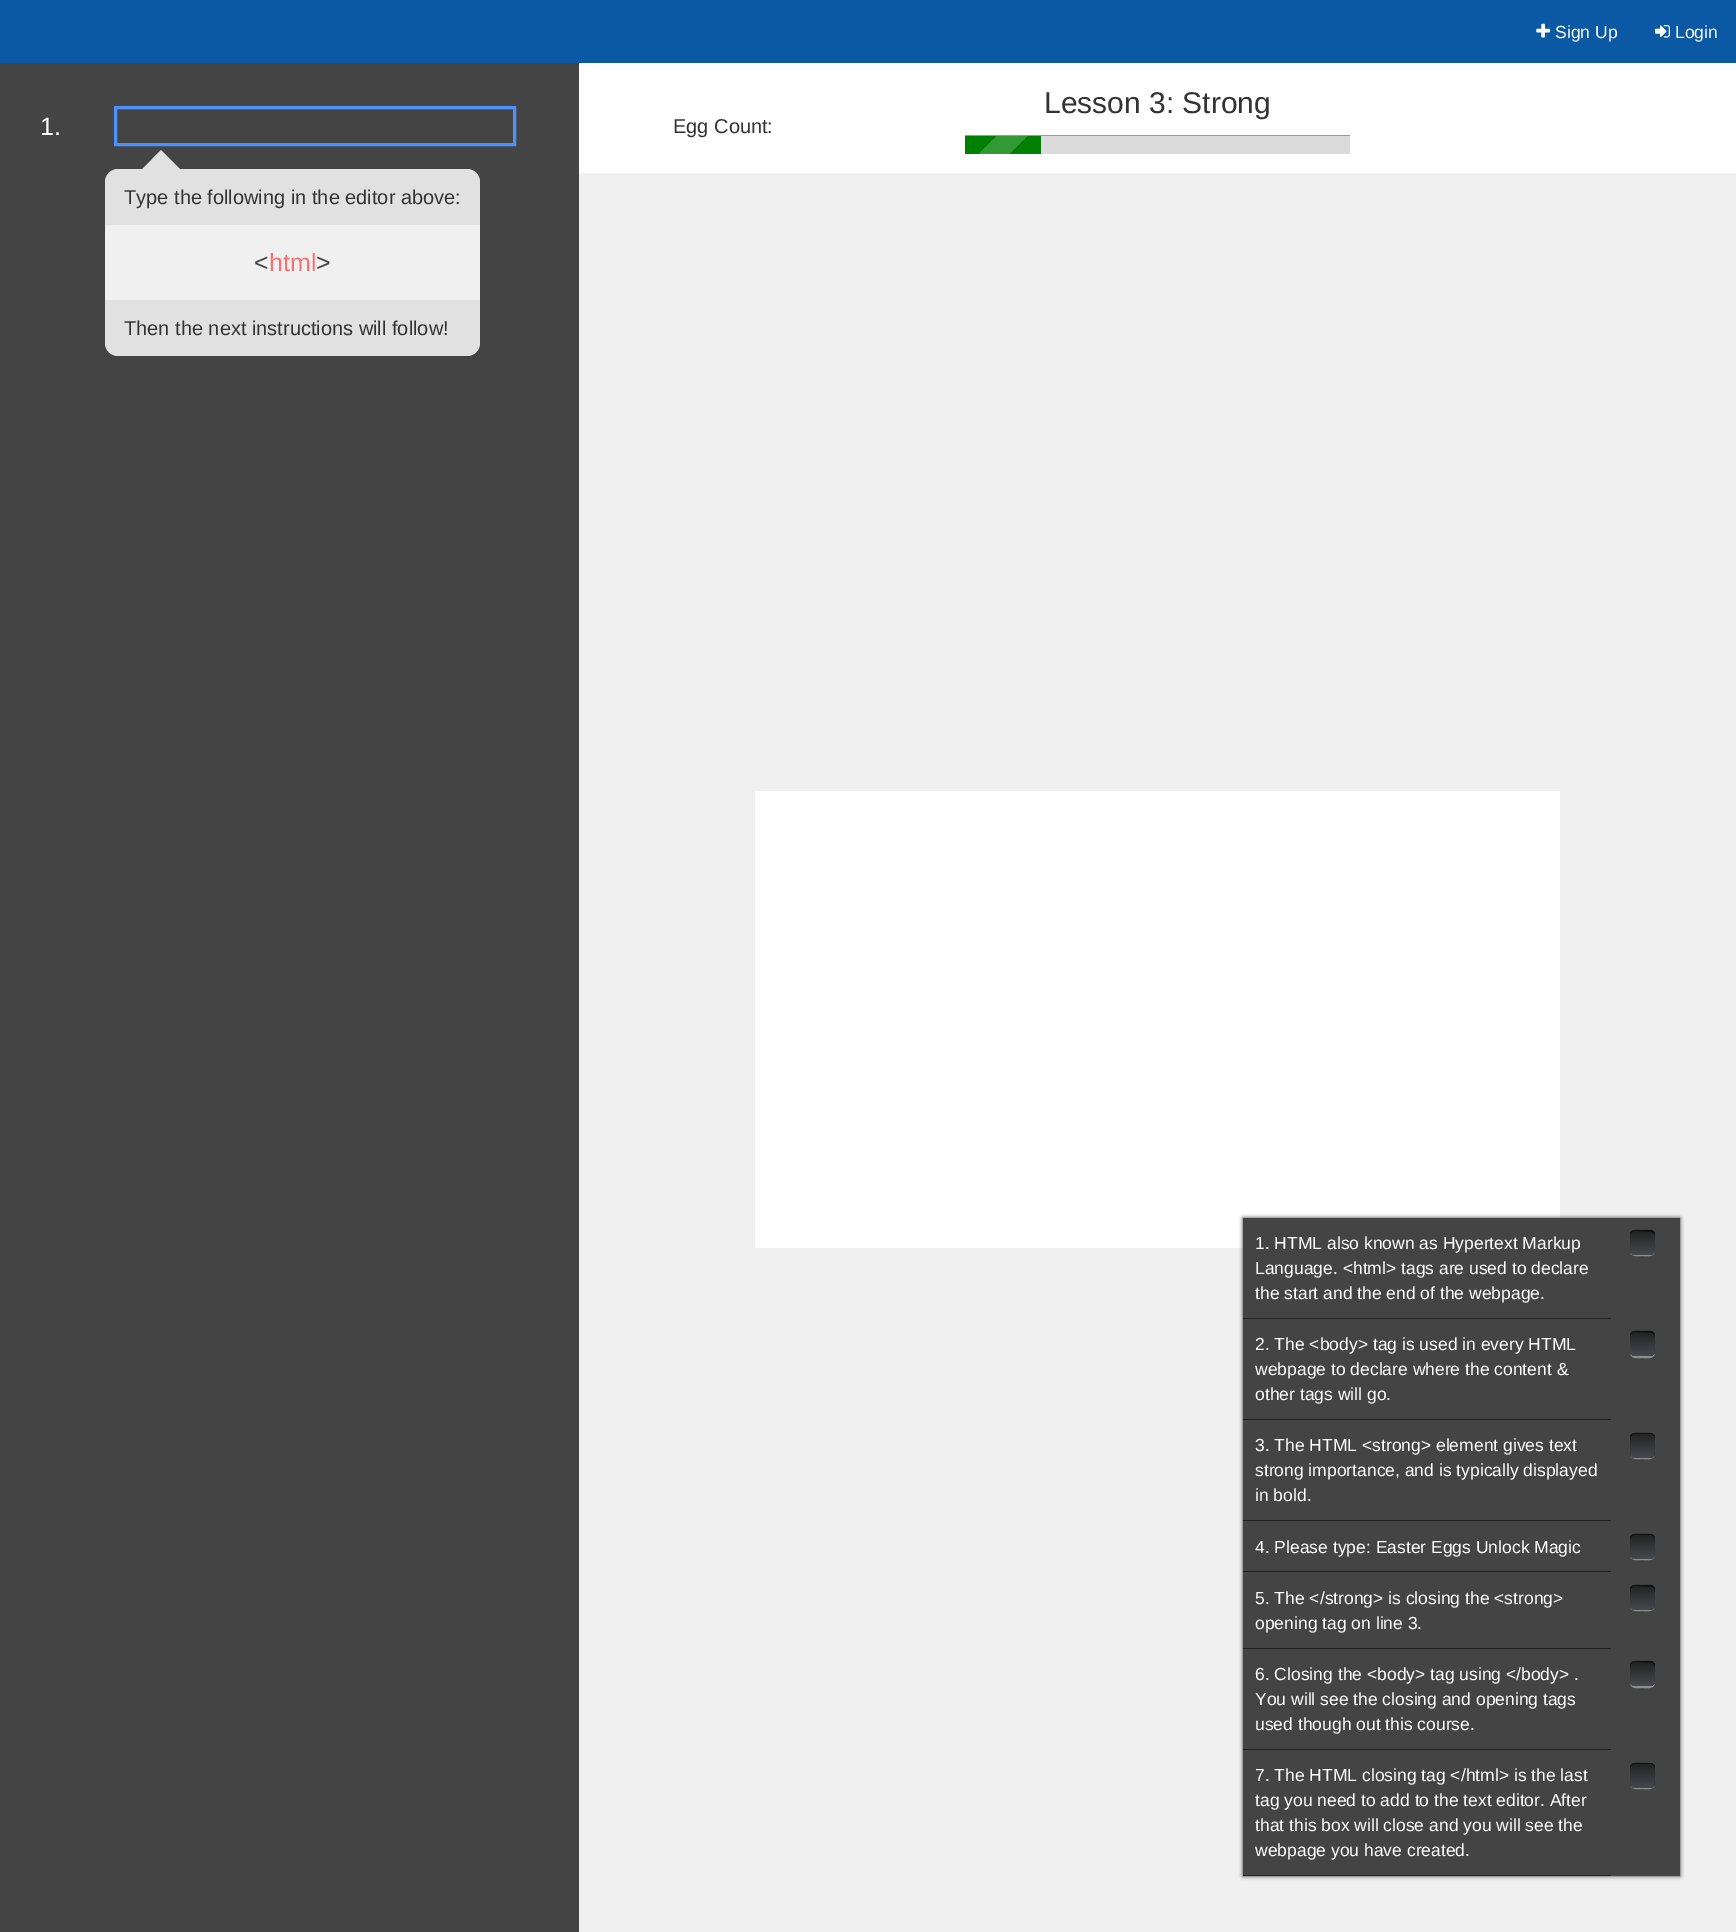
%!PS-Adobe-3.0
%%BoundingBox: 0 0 1736 1932
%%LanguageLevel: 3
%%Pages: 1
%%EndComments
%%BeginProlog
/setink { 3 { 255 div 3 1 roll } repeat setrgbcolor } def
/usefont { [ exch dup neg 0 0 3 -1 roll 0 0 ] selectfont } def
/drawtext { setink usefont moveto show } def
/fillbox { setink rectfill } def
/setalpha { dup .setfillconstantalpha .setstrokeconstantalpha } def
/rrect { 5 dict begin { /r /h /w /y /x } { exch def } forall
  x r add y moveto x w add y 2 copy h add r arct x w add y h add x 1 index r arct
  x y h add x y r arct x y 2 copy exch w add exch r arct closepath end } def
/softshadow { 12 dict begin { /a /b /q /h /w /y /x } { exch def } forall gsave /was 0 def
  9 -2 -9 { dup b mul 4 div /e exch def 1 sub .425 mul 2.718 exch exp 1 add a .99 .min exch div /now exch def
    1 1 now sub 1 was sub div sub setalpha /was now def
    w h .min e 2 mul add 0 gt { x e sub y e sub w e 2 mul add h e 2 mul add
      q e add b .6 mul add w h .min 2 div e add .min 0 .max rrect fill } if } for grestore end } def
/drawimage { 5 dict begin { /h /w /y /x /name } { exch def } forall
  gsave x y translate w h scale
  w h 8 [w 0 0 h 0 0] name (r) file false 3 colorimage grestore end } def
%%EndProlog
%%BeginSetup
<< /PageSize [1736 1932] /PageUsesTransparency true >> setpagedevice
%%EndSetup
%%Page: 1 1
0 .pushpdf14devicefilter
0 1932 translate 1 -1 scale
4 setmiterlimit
0 0 1736 1932 240 240 240 fillbox
0 0 1736 63 11 88 165 fillbox
(assets/img1.rgb) 1536 23 14 15 drawimage
(Sign Up) 1555 38 /LiberationSans-Regular 17.5 255 255 255 drawtext
(assets/img2.rgb) 1655 25 15 13 drawimage
(Login) 1675 38 /LiberationSans-Regular 17.5 255 255 255 drawtext
0 63 579 1869 68 68 68 fillbox
(1.) 40 135 /LiberationSans-Regular 25 255 255 255 drawtext
77 144 254 setink
3 setlinewidth
115.5 107.5 399 37 rectstroke
579 63 1157 110 255 255 255 fillbox
(Lesson 3: Strong) 1044 113 /LiberationSans-Regular 30 51 51 51 drawtext
1041 136 309 18 219 219 219 fillbox
965 135 385 1 153 153 153 fillbox
965 136 76 18 0 128 0 fillbox
gsave 974 136 moveto 1028 136 lineto 1028 154 lineto 974 154 lineto 969 154 965 150 965 145 curveto 965 140 969 136 974 136 curveto closepath clip newpath
<< /ShadingType 2 /ColorSpace /DeviceRGB /Coords [1028 199 965 136] /Extend [true true] /Function << /FunctionType 3 /Domain [0 1] /Functions [<< /FunctionType 2 /Domain [0 1] /C0 [0.2 0.6 0.2] /C1 [0.2 0.6 0.2] /N 1 >> << /FunctionType 2 /Domain [0 1] /C0 [0 0.502 0] /C1 [0 0.502 0] /N 1 >> << /FunctionType 2 /Domain [0 1] /C0 [0.2 0.6 0.2] /C1 [0.2 0.6 0.2] /N 1 >> << /FunctionType 2 /Domain [0 1] /C0 [0 0.502 0] /C1 [0 0.502 0] /N 1 >>] /Bounds [0.25 0.5 0.75] /Encode [0 1 0 1 0 1 0 1] >> >> shfill grestore
(Egg Count:) 673 133 /LiberationSans-Regular 20 51 51 51 drawtext
755 791 805 457 255 255 255 fillbox
225 225 225 setink
105 169 375 187 13 rrect fill
180 169 moveto 142.5 169 lineto 161 150 lineto closepath fill
(Type the following in the editor above:) 124 204 /LiberationSans-Regular 20 51 51 51 drawtext
105 225 375 75 240 240 240 fillbox
(<) 254 271 /LiberationSans-Regular 25 68 68 68 drawtext
(html) 269 271 /LiberationSans-Regular 25 253 111 111 drawtext
(>) 316 271 /LiberationSans-Regular 25 68 68 68 drawtext
(Then the next instructions will follow!) 124 335 /LiberationSans-Regular 20 51 51 51 drawtext
0 0 0 setink
1243 1218 437 658 0 2 0.8 softshadow
1243 1218 437 658 68 68 68 fillbox
1243 1318 368 1 34 34 34 fillbox
(1. HTML also known as Hypertext Markup) 1255 1249 /LiberationSans-Regular 17.5 255 255 255 drawtext
(Language. <html> tags are used to declare) 1255 1274 /LiberationSans-Regular 17.5 255 255 255 drawtext
(the start and the end of the webpage.) 1255 1299 /LiberationSans-Regular 17.5 255 255 255 drawtext
143 143 143 setink
1630 1250 moveto 1630 1257.5 1637 1256 1642.5 1256 curveto 1648 1256 1655 1257.5 1655 1250 curveto 1655 1256.5 1646.5 1255 1642.5 1255 curveto 1638.5 1255 1630 1256.5 1630 1250 curveto closepath fill
gsave 1630 1230 25 25 5 rrect clip newpath
<< /ShadingType 2 /ColorSpace /DeviceRGB /Coords [1643 1230 1643 1255] /Extend [true true] /Function << /FunctionType 2 /Domain [0 1] /C0 [0.133 0.133 0.133] /C1 [0.271 0.282 0.302] /N 1 >> >> shfill grestore
0.5 setalpha
0 0 0 setink
1635 1231 moveto 1652 1232 lineto 1654 1233 1655 1235 1655 1237 curveto 1655 1228 1650 1230 1642.5 1230 curveto 1638.5 1230 1631 1228.5 1630 1234 curveto 1630 1238 lineto 1630 1234.5 1631 1231 1635 1231 curveto closepath 1655 1249.5 moveto 1654.5 1251.5 lineto closepath eofill
1 setalpha
1243 1419 368 1 34 34 34 fillbox
(2. The <body> tag is used in every HTML) 1255 1350 /LiberationSans-Regular 17.5 255 255 255 drawtext
(webpage to declare where the content &) 1255 1375 /LiberationSans-Regular 17.5 255 255 255 drawtext
(other tags will go.) 1255 1400 /LiberationSans-Regular 17.5 255 255 255 drawtext
143 143 143 setink
1630 1351 moveto 1630 1359.5 1636 1358 1642.5 1358 curveto 1649 1358 1655 1359.5 1655 1351 curveto 1655 1358 1646.5 1356 1642.5 1356 curveto 1638.5 1356 1630 1358 1630 1351 curveto closepath fill
gsave 1630 1331 25 25 5 rrect clip newpath
<< /ShadingType 2 /ColorSpace /DeviceRGB /Coords [1643 1331 1643 1356] /Extend [true true] /Function << /FunctionType 2 /Domain [0 1] /C0 [0.133 0.133 0.133] /C1 [0.271 0.282 0.302] /N 1 >> >> shfill grestore
0.5 setalpha
0 0 0 setink
1635 1332 moveto 1652 1333 lineto 1654 1334 1655 1336 1655 1338 curveto 1655 1329 1650 1331 1642.5 1331 curveto 1638.5 1331 1631 1329.5 1630 1335 curveto 1630 1339 lineto 1630 1335.5 1631 1332 1635 1332 curveto closepath 1655 1350.5 moveto 1655 1352.5 lineto closepath eofill
1 setalpha
1243 1520 368 1 34 34 34 fillbox
(3. The HTML <strong> element gives text) 1255 1451 /LiberationSans-Regular 17.5 255 255 255 drawtext
(strong importance, and is typically displayed) 1255 1476 /LiberationSans-Regular 17.5 255 255 255 drawtext
(in bold.) 1255 1501 /LiberationSans-Regular 17.5 255 255 255 drawtext
143 143 143 setink
1630 1452.5 moveto 1630 1460.5 1636.5 1459 1642.5 1459 curveto 1648.5 1459 1655 1460.5 1655 1452.5 curveto 1655 1459 1646.5 1457.5 1642.5 1457.5 curveto 1638.5 1457.5 1630 1459 1630 1452.5 curveto closepath fill
gsave 1630 1433 25 25 5 rrect clip newpath
<< /ShadingType 2 /ColorSpace /DeviceRGB /Coords [1643 1433 1643 1458] /Extend [true true] /Function << /FunctionType 2 /Domain [0 1] /C0 [0.133 0.133 0.133] /C1 [0.271 0.282 0.302] /N 1 >> >> shfill grestore
0.5 setalpha
0 0 0 setink
1635 1434 moveto 1652 1434 lineto 1654 1435 1655 1437 1655 1439 curveto 1655 1431.5 1648.5 1433 1642.5 1433 curveto 1638.5 1433 1631 1431.5 1630 1437 curveto 1630 1440.5 lineto 1630 1437 1631 1434 1635 1434 curveto closepath 1655 1452 moveto 1654.5 1455.5 lineto 1655 1454 1655 1453 1655 1452 curveto closepath 1630.5 1455.5 moveto 1630 1453 lineto 1630 1454 1630 1454.5 1630.5 1455.5 curveto closepath eofill
1 setalpha
1243 1571 368 1 34 34 34 fillbox
(4. Please type: Easter Eggs Unlock Magic) 1255 1553 /LiberationSans-Regular 17.5 255 255 255 drawtext
143 143 143 setink
1630 1554 moveto 1630 1561.5 1636.5 1560 1642.5 1560 curveto 1648.5 1560 1655 1561.5 1655 1554 curveto 1655 1560.5 1646.5 1559 1642.5 1559 curveto 1638.5 1559 1630 1560.5 1630 1554 curveto closepath fill
gsave 1630 1534 25 25 5 rrect clip newpath
<< /ShadingType 2 /ColorSpace /DeviceRGB /Coords [1643 1534 1643 1559] /Extend [true true] /Function << /FunctionType 2 /Domain [0 1] /C0 [0.133 0.133 0.133] /C1 [0.271 0.282 0.302] /N 1 >> >> shfill grestore
0.5 setalpha
0 0 0 setink
1635 1535 moveto 1652 1535 lineto 1654 1536 1655 1538 1655 1540.5 curveto 1655 1532.5 1649 1534 1642.5 1534 curveto 1638.5 1534 1631 1532.5 1630 1538 curveto 1630 1541.5 lineto 1630 1538 1631.5 1535 1635 1535 curveto closepath 1655 1553.5 moveto 1654.5 1555.5 lineto closepath eofill
1 setalpha
1243 1648 368 1 34 34 34 fillbox
(5. The </strong> is closing the <strong>) 1255 1604 /LiberationSans-Regular 17.5 255 255 255 drawtext
(opening tag on line 3.) 1255 1629 /LiberationSans-Regular 17.5 255 255 255 drawtext
143 143 143 setink
1630 1605 moveto 1630 1612.5 1637 1611 1642.5 1611 curveto 1648 1611 1655 1612.5 1655 1605 curveto 1655 1611.5 1646.5 1610 1642.5 1610 curveto 1638.5 1610 1630 1611.5 1630 1605 curveto closepath fill
gsave 1630 1585 25 25 5 rrect clip newpath
<< /ShadingType 2 /ColorSpace /DeviceRGB /Coords [1643 1585 1643 1610] /Extend [true true] /Function << /FunctionType 2 /Domain [0 1] /C0 [0.133 0.133 0.133] /C1 [0.271 0.282 0.302] /N 1 >> >> shfill grestore
0.5 setalpha
0 0 0 setink
1635 1586 moveto 1652 1587 lineto 1654 1588 1655 1590 1655 1592 curveto 1655 1583 1650 1585 1642.5 1585 curveto 1638.5 1585 1631 1583.5 1630 1589 curveto 1630 1593 lineto 1630 1589.5 1631 1586 1635 1586 curveto closepath 1655 1604.5 moveto 1654.5 1606.5 lineto closepath eofill
1 setalpha
1243 1749 368 1 34 34 34 fillbox
(6. Closing the <body> tag using </body> .) 1255 1680 /LiberationSans-Regular 17.5 255 255 255 drawtext
(You will see the closing and opening tags) 1255 1705 /LiberationSans-Regular 17.5 255 255 255 drawtext
(used though out this course.) 1255 1730 /LiberationSans-Regular 17.5 255 255 255 drawtext
143 143 143 setink
1630 1681 moveto 1630 1689.5 1636 1688 1642.5 1688 curveto 1649 1688 1655 1689.5 1655 1681 curveto 1655 1688 1646.5 1686 1642.5 1686 curveto 1638.5 1686 1630 1688 1630 1681 curveto closepath fill
gsave 1630 1661 25 25 5 rrect clip newpath
<< /ShadingType 2 /ColorSpace /DeviceRGB /Coords [1643 1661 1643 1686] /Extend [true true] /Function << /FunctionType 2 /Domain [0 1] /C0 [0.133 0.133 0.133] /C1 [0.271 0.282 0.302] /N 1 >> >> shfill grestore
0.5 setalpha
0 0 0 setink
1635 1662 moveto 1652 1663 lineto 1654 1664 1655 1666 1655 1668 curveto 1655 1659 1650 1661 1642.5 1661 curveto 1638.5 1661 1631 1659.5 1630 1665 curveto 1630 1669 lineto 1630 1665.5 1631 1662 1635 1662 curveto closepath 1655 1680.5 moveto 1655 1682.5 lineto closepath eofill
1 setalpha
1243 1875 368 1 34 34 34 fillbox
(7. The HTML closing tag </html> is the last) 1255 1781 /LiberationSans-Regular 17.5 255 255 255 drawtext
(tag you need to add to the text editor. After) 1255 1806 /LiberationSans-Regular 17.5 255 255 255 drawtext
(that this box will close and you will see the) 1255 1831 /LiberationSans-Regular 17.5 255 255 255 drawtext
(webpage you have created.) 1255 1856 /LiberationSans-Regular 17.5 255 255 255 drawtext
143 143 143 setink
1630 1782.5 moveto 1630 1790.5 1636.5 1789 1642.5 1789 curveto 1648.5 1789 1655 1790.5 1655 1782.5 curveto 1655 1789 1646.5 1787.5 1642.5 1787.5 curveto 1638.5 1787.5 1630 1789 1630 1782.5 curveto closepath fill
gsave 1630 1763 25 25 5 rrect clip newpath
<< /ShadingType 2 /ColorSpace /DeviceRGB /Coords [1643 1763 1643 1788] /Extend [true true] /Function << /FunctionType 2 /Domain [0 1] /C0 [0.133 0.133 0.133] /C1 [0.271 0.282 0.302] /N 1 >> >> shfill grestore
0.5 setalpha
0 0 0 setink
1635 1764 moveto 1652 1764 lineto 1654 1765 1655 1767 1655 1769 curveto 1655 1761.5 1648.5 1763 1642.5 1763 curveto 1638.5 1763 1631 1761.5 1630 1767 curveto 1630 1770.5 lineto 1630 1767 1631 1764 1635 1764 curveto closepath 1655 1782 moveto 1654.5 1785.5 lineto 1655 1784 1655 1783 1655 1782 curveto closepath 1630.5 1785.5 moveto 1630 1783 lineto 1630 1784 1630 1784.5 1630.5 1785.5 curveto closepath eofill
.poppdf14devicefilter showpage
%%EOF
